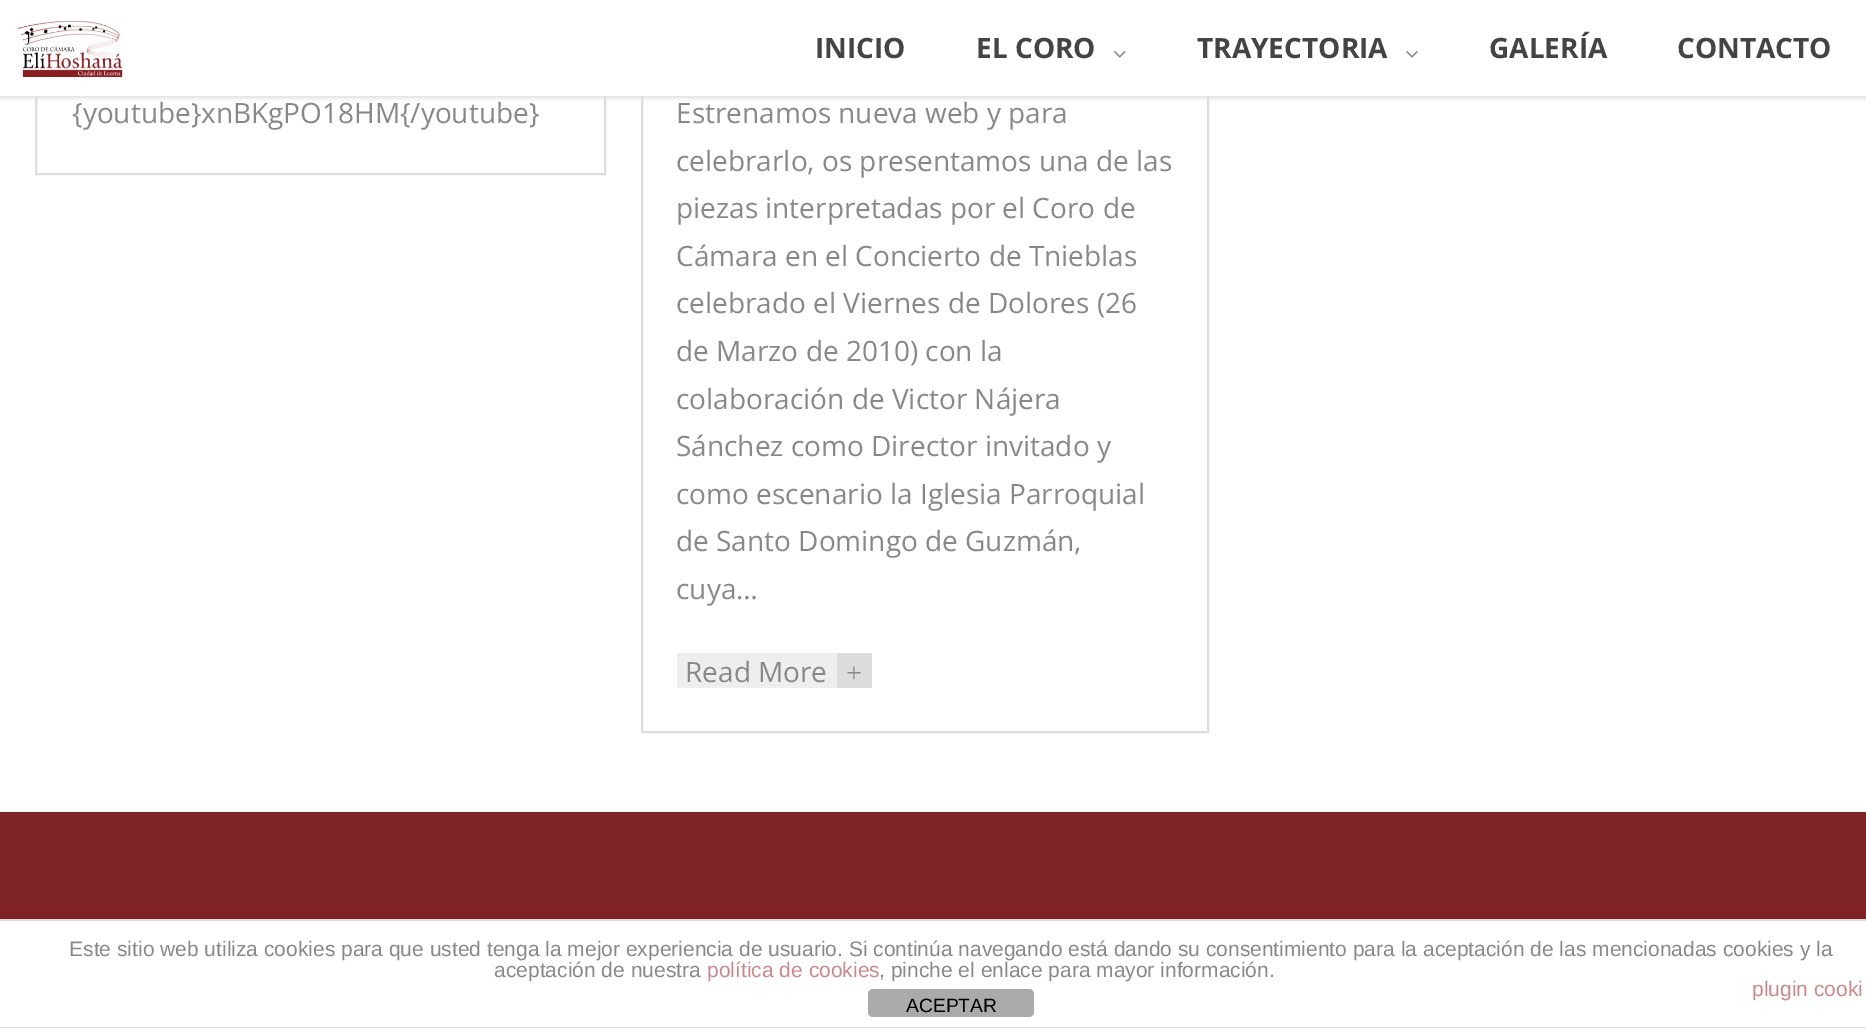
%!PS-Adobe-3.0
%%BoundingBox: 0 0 1866 1028
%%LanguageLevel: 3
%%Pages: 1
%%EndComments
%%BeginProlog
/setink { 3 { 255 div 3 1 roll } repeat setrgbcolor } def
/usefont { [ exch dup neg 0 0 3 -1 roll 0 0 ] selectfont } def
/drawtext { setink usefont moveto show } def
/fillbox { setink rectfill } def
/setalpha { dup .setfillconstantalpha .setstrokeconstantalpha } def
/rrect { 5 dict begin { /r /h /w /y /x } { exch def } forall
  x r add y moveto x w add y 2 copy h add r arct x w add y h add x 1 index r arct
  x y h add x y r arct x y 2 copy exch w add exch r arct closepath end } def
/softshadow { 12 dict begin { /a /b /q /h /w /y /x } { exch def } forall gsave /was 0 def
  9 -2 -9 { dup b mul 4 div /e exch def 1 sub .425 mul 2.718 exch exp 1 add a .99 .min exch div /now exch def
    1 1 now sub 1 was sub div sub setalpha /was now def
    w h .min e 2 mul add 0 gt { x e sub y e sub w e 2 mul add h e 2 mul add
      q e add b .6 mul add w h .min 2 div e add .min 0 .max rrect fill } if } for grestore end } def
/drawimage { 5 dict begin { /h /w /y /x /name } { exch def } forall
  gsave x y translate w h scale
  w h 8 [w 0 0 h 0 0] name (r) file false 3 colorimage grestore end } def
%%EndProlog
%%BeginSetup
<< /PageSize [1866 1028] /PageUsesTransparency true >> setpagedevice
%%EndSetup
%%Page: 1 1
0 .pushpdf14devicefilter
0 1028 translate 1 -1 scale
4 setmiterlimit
0 0 1866 1028 255 255 255 fillbox
221 221 221 setink
2 setlinewidth
36 -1 569 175 rectstroke
642 -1 566 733 rectstroke
-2 -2 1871 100 0 2.5 1 softshadow
0 0 1866 96 255 255 255 fillbox
(assets/img1.rgb) 17 21 106 56 drawimage
(INICIO) 815 58 /OpenSans-Bold 28 68 68 68 drawtext
(EL CORO) 976 58 /OpenSans-Bold 28 68 68 68 drawtext
(assets/img2.rgb) 1114 51 12 7 drawimage
(TRAYECTORIA) 1197 58 /OpenSans-Bold 28 68 68 68 drawtext
(assets/img3.rgb) 1406 51 12 7 drawimage
(GALERÍA) 1489 58 /OpenSans-Bold 28 68 68 68 drawtext
(CONTACTO) 1677 58 /OpenSans-Bold 28 68 68 68 drawtext
({youtube}xnBKgPO18HM{/youtube}) 72 123 /OpenSans-Regular 28 136 136 136 drawtext
(Estrenamos nueva web y para) 676 123 /OpenSans-Regular 28 136 136 136 drawtext
(celebrarlo, os presentamos una de las) 676 171 /OpenSans-Regular 28 136 136 136 drawtext
(piezas interpretadas por el Coro de) 676 218 /OpenSans-Regular 28 136 136 136 drawtext
(Cámara en el Concierto de Tnieblas) 676 266 /OpenSans-Regular 28 136 136 136 drawtext
(celebrado el Viernes de Dolores \(26) 676 313 /OpenSans-Regular 28 136 136 136 drawtext
(de Marzo de 2010\) con la) 676 361 /OpenSans-Regular 28 136 136 136 drawtext
(colaboración de Victor Nájera) 676 409 /OpenSans-Regular 28 136 136 136 drawtext
(Sánchez como Director invitado y) 676 456 /OpenSans-Regular 28 136 136 136 drawtext
(como escenario la Iglesia Parroquial) 676 504 /OpenSans-Regular 28 136 136 136 drawtext
(de Santo Domingo de Guzmán,) 676 551 /OpenSans-Regular 28 136 136 136 drawtext
(cuya…) 676 599 /OpenSans-Regular 28 136 136 136 drawtext
677 653 160 35 238 238 238 fillbox
(Read More) 685 682 /OpenSans-Regular 28 136 136 136 drawtext
837 653 35 35 221 221 221 fillbox
(+) 846 682 /LiberationSerif-Regular 28 136 136 136 drawtext
0 812 1866 107 126 34 37 fillbox
0 919 1866 2 221 221 221 fillbox
0 1027 1866 1 221 221 221 fillbox
(Este sitio web utiliza cookies para que usted tenga la mejor experiencia de usuario. Si continúa navegando está dando su consentimiento para la aceptación de las mencionadas cookies y la) 69 956 /LiberationSans-Regular 21 136 136 136 drawtext
(aceptación de nuestra) 494 977 /LiberationSans-Regular 21 136 136 136 drawtext
(política de cookies) 707 977 /LiberationSans-Regular 21 204 136 136 drawtext
(, pinche el enlace para mayor información.) 879 977 /LiberationSans-Regular 21 136 136 136 drawtext
(plugin cooki) 1752 996 /LiberationSans-Regular 21 204 136 136 drawtext
170 170 170 setink
868 989 166 28 5 rrect fill
(ACEPTAR) 906 1012 /LiberationSans-Regular 19.25 0 0 0 drawtext
.poppdf14devicefilter showpage
%%EOF
